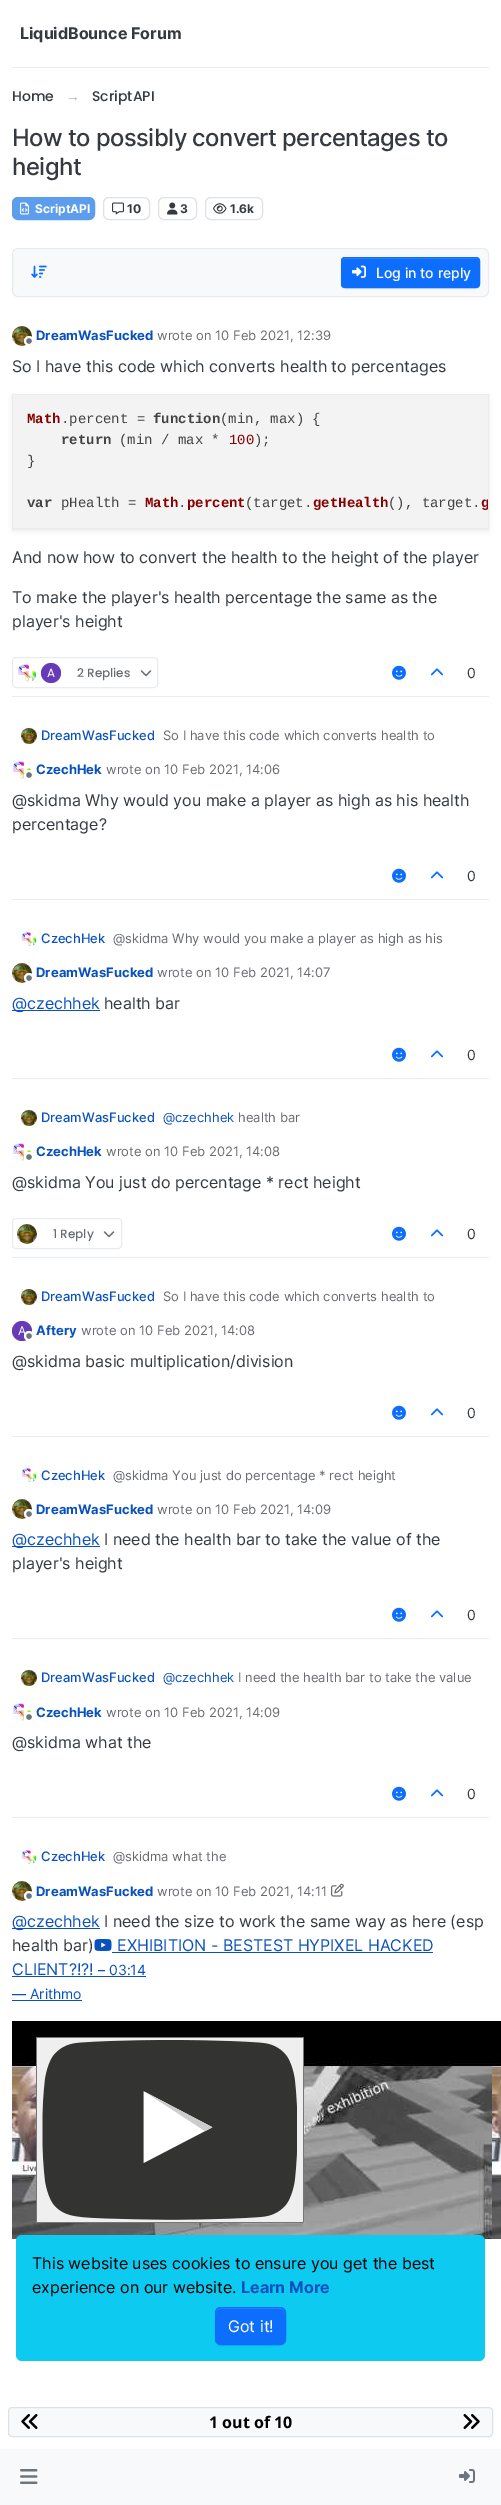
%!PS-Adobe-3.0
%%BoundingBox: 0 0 501 2505
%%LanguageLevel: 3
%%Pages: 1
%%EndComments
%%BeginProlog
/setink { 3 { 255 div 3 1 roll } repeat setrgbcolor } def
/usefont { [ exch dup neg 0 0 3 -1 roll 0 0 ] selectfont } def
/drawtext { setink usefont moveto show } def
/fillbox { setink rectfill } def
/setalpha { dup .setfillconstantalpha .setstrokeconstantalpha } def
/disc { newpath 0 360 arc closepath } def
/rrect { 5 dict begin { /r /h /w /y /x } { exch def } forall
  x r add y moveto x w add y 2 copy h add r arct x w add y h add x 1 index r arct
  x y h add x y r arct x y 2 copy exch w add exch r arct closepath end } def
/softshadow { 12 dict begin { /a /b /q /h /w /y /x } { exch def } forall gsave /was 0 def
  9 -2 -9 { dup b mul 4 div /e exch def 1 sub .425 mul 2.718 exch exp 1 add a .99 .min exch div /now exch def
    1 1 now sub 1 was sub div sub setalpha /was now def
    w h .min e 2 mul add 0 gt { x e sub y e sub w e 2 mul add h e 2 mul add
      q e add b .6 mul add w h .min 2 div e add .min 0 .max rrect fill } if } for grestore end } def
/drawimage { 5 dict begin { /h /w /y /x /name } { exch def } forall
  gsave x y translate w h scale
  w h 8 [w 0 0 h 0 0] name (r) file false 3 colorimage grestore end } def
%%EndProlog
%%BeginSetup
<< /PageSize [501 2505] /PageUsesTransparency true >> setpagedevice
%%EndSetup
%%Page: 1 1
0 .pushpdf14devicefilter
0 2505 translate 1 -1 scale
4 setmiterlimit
0 0 501 2505 255 255 255 fillbox
12 67 477 1 233 236 239 fillbox
(LiquidBounce Forum) 20 39 /Inter-Bold 16 52 58 64 drawtext
(Home) 12 101 /Poppins-Medium 14 52 58 64 drawtext
(→) 66 101 /LiberationSans-Regular 14 173 181 189 drawtext
(ScriptAPI) 92 101 /Poppins-Medium 14 52 58 64 drawtext
/Inter-Medium 23.8 usefont
12 146 moveto -0.5 0 (How to possibly convert percentages to) ashow
12 175 moveto -0.5 0 (height) ashow
92 157 237 setink
12.5 197.5 82 22 5.5 rrect gsave fill grestore
stroke
(assets/img1.rgb) 20 202 9 13 drawimage
(ScriptAPI) 35 213 /Inter-Bold 12 255 255 255 drawtext
222 226 230 setink
103.5 197.5 46 22 5.5 rrect stroke
(assets/img2.rgb) 112 202 12 13 drawimage
(10) 127 213 /Inter-Bold 12 52 58 64 drawtext
222 226 230 setink
158.5 197.5 38 22 5.5 rrect stroke
(assets/img3.rgb) 167 202 11 13 drawimage
(3) 180 213 /Inter-Bold 12 52 58 64 drawtext
222 226 230 setink
205.5 197.5 57 22 5.5 rrect stroke
(assets/img4.rgb) 213 203 14 11 drawimage
(1.6k) 230 213 /Inter-Bold 12 52 58 64 drawtext
248 249 250 setink
12.5 248.5 476 48 5.5 rrect gsave fill grestore
233 236 239 setink
stroke
(assets/img5.rgb) 31 265 16 13 drawimage
0 0 0 setink
341 258 139 31 4 0.5 0.07 softshadow
13 110 253 setink
341 257 139 31 4 rrect fill
49 132 253 setink
345 259 moveto 476 259 lineto 478 259 479 260 479 262 curveto 479 260 479 258 477 258 curveto 344 258 lineto 342 258 342 260 342 262 curveto 342 260 343 259 345 259 curveto closepath fill
13 110 253 setink
341.5 257.5 138 30 3.5 rrect stroke
(assets/img6.rgb) 352 265 14 13 drawimage
(Log in to reply) 376 278 /Inter-Medium 14 255 255 255 drawtext
(assets/img7.rgb) 12 326 20 20 drawimage
108 117 125 setink
29 341 4 disc gsave fill grestore
255 255 255 setink
2 setlinewidth
stroke
(DreamWasFucked) 36 340 /Inter-Bold 13 9 81 190 drawtext
(wrote on 10 Feb 2021, 12:39) 157 340 /Inter-Regular 13 103 107 112 drawtext
(So I have this code which converts health to percentages) 12 372 /Inter-Regular 16 52 58 64 drawtext
0 0 0 setink
12 396 477 135 0 2 0.07 softshadow
233 236 239 setink
1 setlinewidth
12.5 394.5 476 134 rectstroke
13 395 475 133 243 243 243 fillbox
(Math) 27 423 /LiberationMono-Bold 14 136 0 0 drawtext
(.percent =) 61 423 /LiberationMono-Regular 14 68 68 68 drawtext
(function) 153 423 /LiberationMono-Bold 14 68 68 68 drawtext
(\(min, max\) {) 220 423 /LiberationMono-Regular 14 68 68 68 drawtext
(return) 61 444 /LiberationMono-Bold 14 68 68 68 drawtext
(\(min / max *) 119 444 /LiberationMono-Regular 14 68 68 68 drawtext
(100) 229 444 /LiberationMono-Regular 14 136 0 0 drawtext
(\);) 254 444 /LiberationMono-Regular 14 68 68 68 drawtext
(}) 27 465 /LiberationMono-Regular 14 68 68 68 drawtext
(var) 27 507 /LiberationMono-Bold 14 68 68 68 drawtext
(pHealth =) 61 507 /LiberationMono-Regular 14 68 68 68 drawtext
(Math percent) 145 507 /LiberationMono-Bold 14 136 0 0 drawtext
(\(target.) 245 507 /LiberationMono-Regular 14 68 68 68 drawtext
(getHealth) 313 507 /LiberationMono-Bold 14 136 0 0 drawtext
(\(\), target.) 388 507 /LiberationMono-Regular 14 68 68 68 drawtext
gsave
13 395 475 133 rectclip
(g) 481 507 /LiberationMono-Bold 14 136 0 0 drawtext
grestore
(.) 178 507 /LiberationMono-Regular 14 68 68 68 drawtext
(And now how to convert the health to the height of the player) 12 563 /Inter-Regular 16 52 58 64 drawtext
(To make the player's health percentage the same as the) 12 603 /Inter-Regular 16 52 58 64 drawtext
(player's height) 12 627 /Inter-Regular 16 52 58 64 drawtext
12 696 477 1 233 236 239 fillbox
12.5 657.5 145 30 3.5 rrect stroke
(assets/img8.rgb) 18 664 19 18 drawimage
103 58 183 setink
51 673 10 disc fill
(A) 47 677 /Poppins-Regular 12 255 255 255 drawtext
(2 Replies) 77 677 /Poppins-Medium 12 103 107 112 drawtext
(assets/img9.rgb) 140 670 12 7 drawimage
(assets/img10.rgb) 392 665 14 15 drawimage
(assets/img11.rgb) 430 668 14 8 drawimage
(0) 467 678 /Inter-Regular 14 52 58 64 drawtext
(assets/img12.rgb) 21 728 16 16 drawimage
(DreamWasFucked) 41 740 /Inter-Medium 13 9 81 190 drawtext
(So I have this code which converts health to) 163 740 /Inter-Regular 13 103 107 112 drawtext
(assets/img8.rgb) 13 761 19 18 drawimage
108 117 125 setink
29 775 4 disc gsave fill grestore
255 255 255 setink
2 setlinewidth
stroke
(CzechHek) 36 774 /Inter-Bold 13 9 81 190 drawtext
(wrote on 10 Feb 2021, 14:06) 106 774 /Inter-Regular 13 103 107 112 drawtext
(@skidma Why would you make a player as high as his health) 12 806 /Inter-Regular 16 52 58 64 drawtext
(percentage?) 12 830 /Inter-Regular 16 52 58 64 drawtext
12 899 477 1 233 236 239 fillbox
(assets/img10.rgb) 392 868 14 15 drawimage
(assets/img11.rgb) 430 871 14 8 drawimage
(0) 467 881 /Inter-Regular 14 52 58 64 drawtext
(assets/img13.rgb) 21 932 16 14 drawimage
(CzechHek) 41 943 /Inter-Medium 13 9 81 190 drawtext
(@skidma Why would you make a player as high as his) 113 943 /Inter-Regular 13 103 107 112 drawtext
(assets/img7.rgb) 12 963 20 20 drawimage
108 117 125 setink
29 978 4 disc gsave fill grestore
255 255 255 setink
stroke
(DreamWasFucked) 36 977 /Inter-Bold 13 9 81 190 drawtext
(wrote on 10 Feb 2021, 14:07) 157 977 /Inter-Regular 13 103 107 112 drawtext
12 1010 88 1 9 81 190 fillbox
(@czechhek) 12 1009 /Inter-Regular 16 9 81 190 drawtext
(health bar) 104 1009 /Inter-Regular 16 52 58 64 drawtext
12 1078 477 1 233 236 239 fillbox
(assets/img10.rgb) 392 1047 14 15 drawimage
(assets/img11.rgb) 430 1050 14 8 drawimage
(0) 467 1060 /Inter-Regular 14 52 58 64 drawtext
(assets/img12.rgb) 21 1110 16 16 drawimage
(DreamWasFucked) 41 1122 /Inter-Medium 13 9 81 190 drawtext
(@czechhek) 163 1122 /Inter-Regular 13 9 81 190 drawtext
(health bar) 238 1122 /Inter-Regular 13 103 107 112 drawtext
(assets/img8.rgb) 13 1143 19 18 drawimage
108 117 125 setink
29 1157 4 disc gsave fill grestore
255 255 255 setink
stroke
(CzechHek) 36 1156 /Inter-Bold 13 9 81 190 drawtext
(wrote on 10 Feb 2021, 14:08) 106 1156 /Inter-Regular 13 103 107 112 drawtext
(@skidma You just do percentage * rect height) 12 1188 /Inter-Regular 16 52 58 64 drawtext
12 1257 477 1 233 236 239 fillbox
1 setlinewidth
12.5 1218.5 109 30 3.5 rrect stroke
(assets/img7.rgb) 17 1224 20 20 drawimage
(1 Reply) 53 1238 /Poppins-Medium 12 103 107 112 drawtext
(assets/img9.rgb) 103 1231 12 7 drawimage
(assets/img10.rgb) 392 1226 14 15 drawimage
(assets/img11.rgb) 430 1229 14 8 drawimage
(0) 467 1239 /Inter-Regular 14 52 58 64 drawtext
(assets/img12.rgb) 21 1289 16 16 drawimage
(DreamWasFucked) 41 1301 /Inter-Medium 13 9 81 190 drawtext
(So I have this code which converts health to) 163 1301 /Inter-Regular 13 103 107 112 drawtext
103 58 183 setink
22 1331 10 disc fill
(A) 18 1335 /Inter-Regular 12 255 255 255 drawtext
108 117 125 setink
29 1336 4 disc gsave fill grestore
255 255 255 setink
2 setlinewidth
stroke
(Aftery) 36 1335 /Inter-Bold 13 9 81 190 drawtext
(wrote on 10 Feb 2021, 14:08) 81 1335 /Inter-Regular 13 103 107 112 drawtext
(@skidma basic multiplication/division) 12 1367 /Inter-Regular 16 52 58 64 drawtext
12 1436 477 1 233 236 239 fillbox
(assets/img10.rgb) 392 1405 14 15 drawimage
(assets/img11.rgb) 430 1408 14 8 drawimage
(0) 467 1418 /Inter-Regular 14 52 58 64 drawtext
(assets/img13.rgb) 21 1468 16 14 drawimage
(CzechHek) 41 1480 /Inter-Medium 13 9 81 190 drawtext
(@skidma You just do percentage * rect height) 113 1480 /Inter-Regular 13 103 107 112 drawtext
(assets/img7.rgb) 12 1499 20 20 drawimage
108 117 125 setink
29 1514 4 disc gsave fill grestore
255 255 255 setink
stroke
(DreamWasFucked) 36 1514 /Inter-Bold 13 9 81 190 drawtext
(wrote on 10 Feb 2021, 14:09) 157 1514 /Inter-Regular 13 103 107 112 drawtext
12 1546 88 1 9 81 190 fillbox
(@czechhek) 12 1545 /Inter-Regular 16 9 81 190 drawtext
(I need the health bar to take the value of the) 104 1545 /Inter-Regular 16 52 58 64 drawtext
(player's height) 12 1569 /Inter-Regular 16 52 58 64 drawtext
12 1638 477 1 233 236 239 fillbox
(assets/img10.rgb) 392 1607 14 15 drawimage
(assets/img11.rgb) 430 1610 14 8 drawimage
(0) 467 1620 /Inter-Regular 14 52 58 64 drawtext
(assets/img12.rgb) 21 1670 16 16 drawimage
(DreamWasFucked) 41 1682 /Inter-Medium 13 9 81 190 drawtext
(@czechhek) 163 1682 /Inter-Regular 13 9 81 190 drawtext
(I need the health bar to take the value) 238 1682 /Inter-Regular 13 103 107 112 drawtext
(assets/img8.rgb) 13 1703 19 18 drawimage
108 117 125 setink
29 1717 4 disc gsave fill grestore
255 255 255 setink
stroke
(CzechHek) 36 1717 /Inter-Bold 13 9 81 190 drawtext
(wrote on 10 Feb 2021, 14:09) 106 1717 /Inter-Regular 13 103 107 112 drawtext
(@skidma what the) 12 1748 /Inter-Regular 16 52 58 64 drawtext
12 1817 477 1 233 236 239 fillbox
(assets/img10.rgb) 392 1786 14 15 drawimage
(assets/img11.rgb) 430 1789 14 8 drawimage
(0) 467 1799 /Inter-Regular 14 52 58 64 drawtext
(assets/img13.rgb) 21 1850 16 14 drawimage
(CzechHek) 41 1861 /Inter-Medium 13 9 81 190 drawtext
(@skidma what the) 113 1861 /Inter-Regular 13 103 107 112 drawtext
(assets/img7.rgb) 12 1881 20 20 drawimage
108 117 125 setink
29 1896 4 disc gsave fill grestore
255 255 255 setink
stroke
(DreamWasFucked) 36 1896 /Inter-Bold 13 9 81 190 drawtext
(wrote on 10 Feb 2021, 14:11) 157 1896 /Inter-Regular 13 103 107 112 drawtext
(assets/img14.rgb) 331 1883 13 14 drawimage
12 1928 88 1 9 81 190 fillbox
(@czechhek) 12 1927 /Inter-Regular 16 9 81 190 drawtext
(I need the size to work the same way as here \(esp) 104 1927 /Inter-Regular 16 52 58 64 drawtext
(health bar\)) 12 1951 /Inter-Regular 16 52 58 64 drawtext
(assets/img15.rgb) 94 1939 18 12 drawimage
(EXHIBITION - BESTEST HYPIXEL HACKED) 117 1951 /Inter-Regular 16 9 81 190 drawtext
112 1952 321 1 9 81 190 fillbox
(CLIENT?!?!) 12 1975 /Inter-Regular 16 9 81 190 drawtext
12 1976 134 1 9 81 190 fillbox
(– 03:14) 98 1975 /Inter-Regular 14 9 81 190 drawtext
(— Arithmo) 12 1999 /Inter-Regular 14 9 81 190 drawtext
12 2000 70 1 9 81 190 fillbox
(assets/img16.rgb) 12 2021 489 218 drawimage
239 239 239 setink
36.4 2037.4 267.2 185.2 1.1 rrect gsave fill grestore
118 118 118 setink
0.8 setlinewidth
stroke
(assets/img17.rgb) 42 2040 255 180 drawimage
13 202 240 setink
16 2235 469 126 6 rrect fill
(This website uses cookies to ensure you get the best) 32 2269 /Inter-Regular 16 0 0 0 drawtext
(experience on our website.) 32 2293 /Inter-Regular 16 0 0 0 drawtext
(Learn More) 241 2293 /Inter-Bold 16 9 81 190 drawtext
0 0 0 setink
215 2308 71 38 6 0.5 0.07 softshadow
13 110 253 setink
215 2307 71 38 6 rrect fill
49 132 253 setink
221 2309 moveto 280 2309 lineto 283 2309 285 2311 285 2314 curveto 285 2306 276 2308 270 2308 curveto 231 2308 lineto 225 2308 216 2306 216 2314 curveto 216 2311 218 2309 221 2309 curveto closepath fill
13 110 253 setink
1 setlinewidth
215.5 2307.5 70 37 5.5 rrect stroke
(Got it!) 228 2332 /Inter-Regular 16 255 255 255 drawtext
248 249 250 setink
8.5 2407.5 484 29 3.5 rrect gsave fill grestore
222 226 230 setink
stroke
(assets/img18.rgb) 21 2414 17 15 drawimage
(1 out of 10) 209 2428 /NotoSans-Bold 16 0 0 0 drawtext
(assets/img19.rgb) 463 2414 17 15 drawimage
0 2449 501 56 248 249 250 fillbox
(assets/img20.rgb) 20 2469 18 15 drawimage
(assets/img21.rgb) 459 2469 16 14 drawimage
.poppdf14devicefilter showpage
%%EOF
